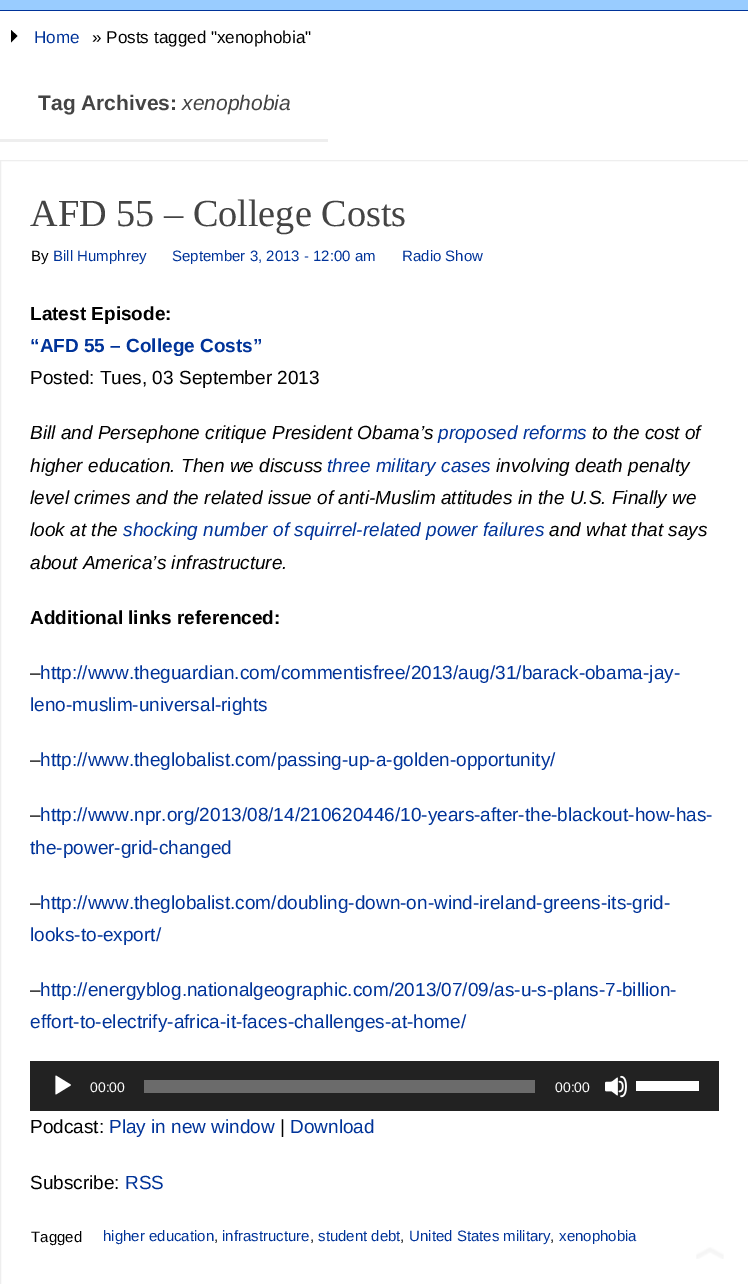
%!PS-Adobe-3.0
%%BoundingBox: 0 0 748 1284
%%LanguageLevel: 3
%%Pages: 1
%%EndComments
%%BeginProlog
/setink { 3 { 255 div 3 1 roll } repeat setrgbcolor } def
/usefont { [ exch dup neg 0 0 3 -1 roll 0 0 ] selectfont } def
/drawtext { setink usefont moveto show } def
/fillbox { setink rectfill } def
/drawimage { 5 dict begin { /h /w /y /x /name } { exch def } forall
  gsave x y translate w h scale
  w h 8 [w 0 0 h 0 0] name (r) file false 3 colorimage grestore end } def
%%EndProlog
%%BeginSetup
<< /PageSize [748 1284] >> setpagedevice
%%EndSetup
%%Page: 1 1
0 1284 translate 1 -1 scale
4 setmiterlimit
0 0 748 1284 255 255 255 fillbox
0 10 748 1 0 51 153 fillbox
0 0 748 10 153 204 255 fillbox
0 0 0 setink
11 42.5 moveto 11 30 lineto 17.5 36 lineto closepath fill
(Home) 34 43 /LiberationSans-Regular 17.1 0 51 153 drawtext
(» Posts tagged "xenophobia") 92 43 /LiberationSans-Regular 17.1 0 0 0 drawtext
0 139 328 3 238 238 238 fillbox
(Tag Archives:) 38 110 /LiberationSans-Bold 21 68 68 68 drawtext
(xenophobia) 182 110 /LiberationSans-Italic 21 68 68 68 drawtext
238 238 238 setink
0.5 160.5 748 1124 rectstroke
(AFD 55 – College Costs) 30 226 /LiberationSerif-Regular 38.25 68 68 68 drawtext
(By) 31 261 /LiberationSans-Regular 15 0 0 0 drawtext
(Bill Humphrey) 53 261 /LiberationSans-Regular 15 0 51 153 drawtext
(September 3, 2013 - 12:00 am) 172 261 /LiberationSans-Regular 15 0 51 153 drawtext
(Radio Show) 402 261 /LiberationSans-Regular 15 0 51 153 drawtext
(Latest Episode:) 30 320 /LiberationSans-Bold 19 0 0 0 drawtext
(“AFD 55 – College Costs”) 30 352 /LiberationSans-Bold 19 0 51 153 drawtext
(Posted: Tues, 03 September 2013) 30 384 /LiberationSans-Regular 19 0 0 0 drawtext
(Bill and Persephone critique President Obama’s) 30 439 /LiberationSans-Italic 19 0 0 0 drawtext
(proposed reforms) 438 439 /LiberationSans-Italic 19 0 51 153 drawtext
(to the cost of) 592 439 /LiberationSans-Italic 19 0 0 0 drawtext
(higher education. Then we discuss) 30 472 /LiberationSans-Italic 19 0 0 0 drawtext
(three military cases) 327 472 /LiberationSans-Italic 19 0 51 153 drawtext
(involving death penalty) 496 472 /LiberationSans-Italic 19 0 0 0 drawtext
(level crimes and the related issue of anti-Muslim attitudes in the U.S. Finally we) 30 504 /LiberationSans-Italic 19 0 0 0 drawtext
(look at the) 30 536 /LiberationSans-Italic 19 0 0 0 drawtext
(shocking number of squirrel-related power failures) 123 536 /LiberationSans-Italic 19 0 51 153 drawtext
(and what that says) 549 536 /LiberationSans-Italic 19 0 0 0 drawtext
(about America’s infrastructure.) 30 569 /LiberationSans-Italic 19 0 0 0 drawtext
(Additional links referenced:) 30 624 /LiberationSans-Bold 19 0 0 0 drawtext
(–) 30 679 /LiberationSans-Regular 19 0 0 0 drawtext
(http://www.theguardian.com/commentisfree/2013/aug/31/barack-obama-jay-) 40 679 /LiberationSans-Regular 19 0 51 153 drawtext
(leno-muslim-universal-rights) 30 711 /LiberationSans-Regular 19 0 51 153 drawtext
(–) 30 766 /LiberationSans-Regular 19 0 0 0 drawtext
(http://www.theglobalist.com/passing-up-a-golden-opportunity/) 40 766 /LiberationSans-Regular 19 0 51 153 drawtext
(–) 30 821 /LiberationSans-Regular 19 0 0 0 drawtext
(http://www.npr.org/2013/08/14/210620446/10-years-after-the-blackout-how-has-) 40 821 /LiberationSans-Regular 19 0 51 153 drawtext
(the-power-grid-changed) 30 854 /LiberationSans-Regular 19 0 51 153 drawtext
(–) 30 909 /LiberationSans-Regular 19 0 0 0 drawtext
(http://www.theglobalist.com/doubling-down-on-wind-ireland-greens-its-grid-) 40 909 /LiberationSans-Regular 19 0 51 153 drawtext
(looks-to-export/) 30 941 /LiberationSans-Regular 19 0 51 153 drawtext
(–) 30 996 /LiberationSans-Regular 19 0 0 0 drawtext
(http://energyblog.nationalgeographic.com/2013/07/09/as-u-s-plans-7-billion-) 40 996 /LiberationSans-Regular 19 0 51 153 drawtext
(effort-to-electrify-africa-it-faces-challenges-at-home/) 30 1028 /LiberationSans-Regular 19 0 51 153 drawtext
30 1061 689 50 34 34 34 fillbox
(assets/img1.rgb) 55 1075 16 20 drawimage
(00:00) 90 1092 /LiberationSans-Regular 14 255 255 255 drawtext
144 1080 391 13 107 107 107 fillbox
(00:00) 555 1092 /LiberationSans-Regular 14 255 255 255 drawtext
(assets/img2.rgb) 605 1075 22 23 drawimage
636 1081 63 10 255 255 255 fillbox
(Podcast:) 30 1133 /LiberationSans-Regular 19 0 0 0 drawtext
(Play in new window) 109 1133 /LiberationSans-Regular 19 0 51 153 drawtext
(|) 280 1133 /LiberationSans-Regular 19 0 0 0 drawtext
(Download) 290 1133 /LiberationSans-Regular 19 0 51 153 drawtext
(Subscribe:) 30 1189 /LiberationSans-Regular 19 0 0 0 drawtext
(RSS) 125 1189 /LiberationSans-Regular 19 0 51 153 drawtext
(Tagged) 31 1242 /LiberationSans-Regular 15 0 0 0 drawtext
(higher education) 103 1241 /LiberationSans-Regular 15 0 51 153 drawtext
(,) 214 1241 /LiberationSans-Regular 15 0 0 0 drawtext
(infrastructure) 222 1241 /LiberationSans-Regular 15 0 51 153 drawtext
(,) 310 1241 /LiberationSans-Regular 15 0 0 0 drawtext
(student debt) 318 1241 /LiberationSans-Regular 15 0 51 153 drawtext
(,) 400 1241 /LiberationSans-Regular 15 0 0 0 drawtext
(United States military) 409 1241 /LiberationSans-Regular 15 0 51 153 drawtext
(,) 550 1241 /LiberationSans-Regular 15 0 0 0 drawtext
(xenophobia) 559 1241 /LiberationSans-Regular 15 0 51 153 drawtext
(assets/img3.rgb) 696 1247 28 12 drawimage
showpage
%%EOF
